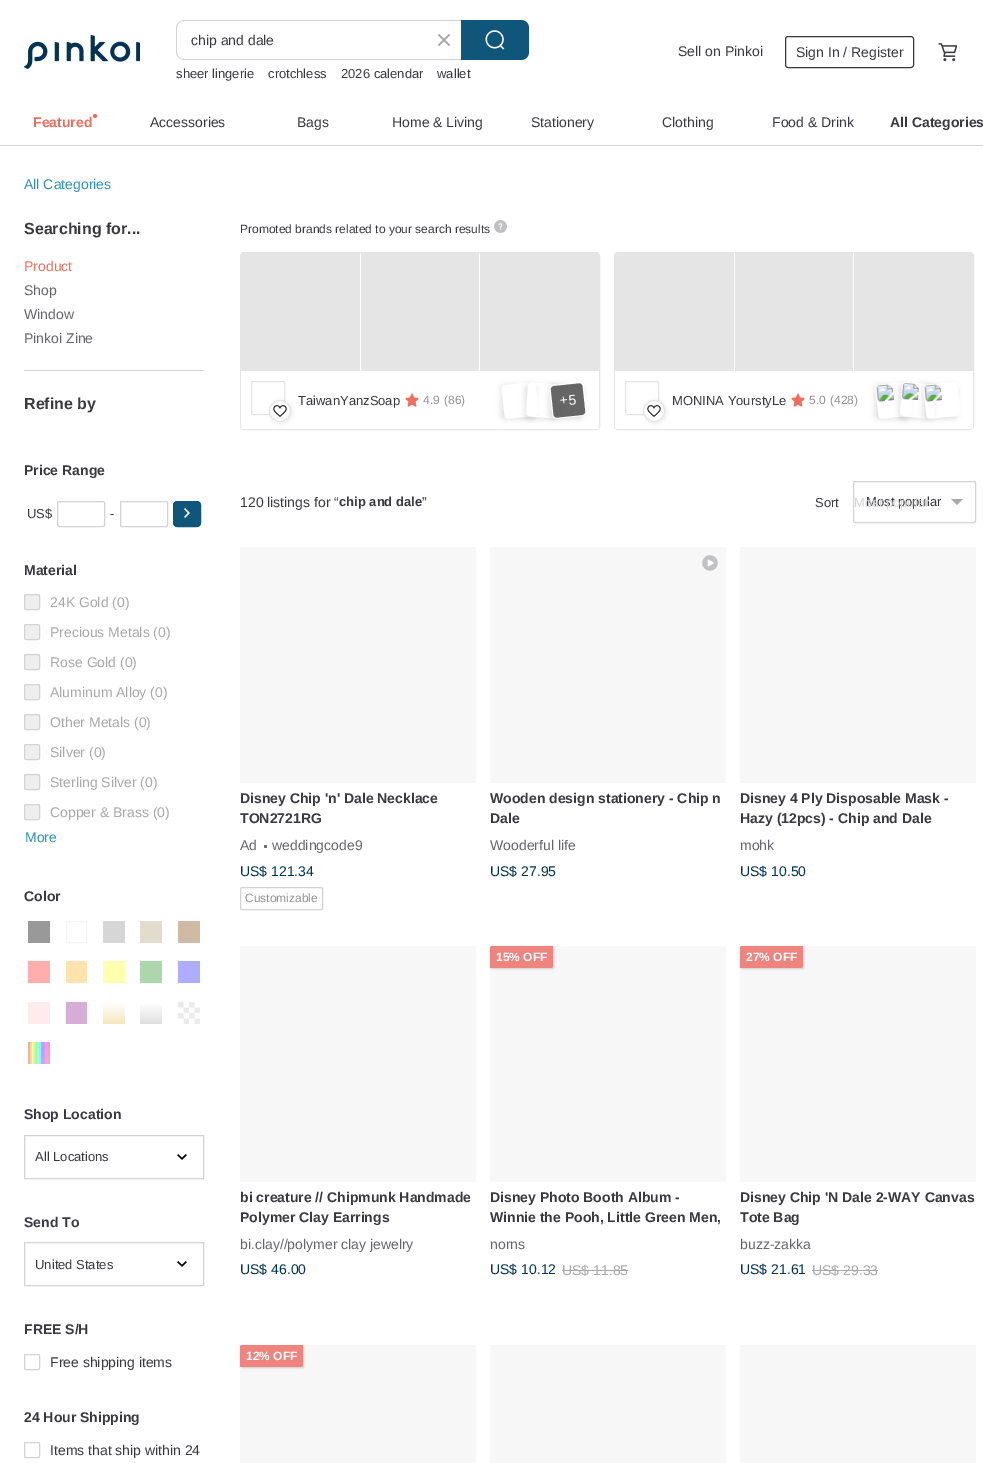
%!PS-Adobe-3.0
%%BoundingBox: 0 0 983 1463
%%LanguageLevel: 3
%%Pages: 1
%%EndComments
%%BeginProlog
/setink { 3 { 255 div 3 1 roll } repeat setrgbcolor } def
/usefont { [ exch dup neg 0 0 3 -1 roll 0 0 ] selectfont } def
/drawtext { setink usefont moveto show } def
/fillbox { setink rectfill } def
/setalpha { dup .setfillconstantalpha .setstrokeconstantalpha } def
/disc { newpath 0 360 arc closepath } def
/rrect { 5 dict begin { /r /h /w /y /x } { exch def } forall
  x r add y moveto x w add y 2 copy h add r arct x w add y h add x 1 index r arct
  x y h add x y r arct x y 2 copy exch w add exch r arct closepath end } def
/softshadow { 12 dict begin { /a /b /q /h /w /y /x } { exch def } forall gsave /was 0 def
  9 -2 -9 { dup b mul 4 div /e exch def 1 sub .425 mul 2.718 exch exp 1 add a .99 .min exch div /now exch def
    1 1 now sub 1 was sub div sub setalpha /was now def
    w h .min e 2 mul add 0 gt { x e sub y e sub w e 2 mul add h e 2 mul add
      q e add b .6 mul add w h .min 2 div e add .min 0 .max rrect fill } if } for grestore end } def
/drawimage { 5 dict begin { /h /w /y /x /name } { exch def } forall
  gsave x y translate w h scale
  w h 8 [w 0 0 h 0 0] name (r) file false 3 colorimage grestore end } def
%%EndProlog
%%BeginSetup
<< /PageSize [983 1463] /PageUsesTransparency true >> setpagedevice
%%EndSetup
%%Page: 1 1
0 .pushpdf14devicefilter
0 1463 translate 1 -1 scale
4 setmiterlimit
0 0 983 1463 255 255 255 fillbox
(assets/img1.rgb) 24 35 116 34 drawimage
211 211 213 setink
184 20 moveto 461 20 lineto 461 60 lineto 184 60 lineto 180 60 176 56 176 52 curveto 176 28 lineto 176 24 180 20 184 20 curveto closepath 184 21 moveto 461 21 lineto 461 59 lineto 184 59 lineto 180 59 177 56 177 52 curveto 177 28 lineto 177 24 180 21 184 21 curveto closepath eofill
(chip and dale) 191 45 /LiberationSans-Regular 14 57 57 62 drawtext
(assets/img2.rgb) 438 34 12 12 drawimage
16 86 123 setink
461 20 moveto 521 20 lineto 525.5 20 529 23.5 529 28 curveto 529 52 lineto 529 56.5 525.5 60 521 60 curveto 461 60 lineto closepath fill
(assets/img3.rgb) 485 30 20 20 drawimage
(sheer lingerie) 176 78 /LiberationSans-Regular 13 57 57 62 drawtext
(crotchless) 268 78 /LiberationSans-Regular 13 57 57 62 drawtext
(2026 calendar) 341 78 /LiberationSans-Regular 13 57 57 62 drawtext
(wallet) 437 78 /LiberationSans-Regular 13 57 57 62 drawtext
(Sell on Pinkoi) 678 56 /LiberationSans-Regular 14 57 57 62 drawtext
785.5 36.5 128 31 2.5 rrect stroke
(Sign In / Register) 796 57 /LiberationSans-Regular 14 57 57 62 drawtext
(assets/img4.rgb) 938 43 20 19 drawimage
0 145 983 1 211 211 213 fillbox
(Featured) 33 127 /LiberationSans-Bold 14 241 108 93 drawtext
95 116 2 disc fill
(Accessories) 150 127 /LiberationSans-Regular 14 57 57 62 drawtext
(Bags) 297 127 /LiberationSans-Regular 14 57 57 62 drawtext
(Home & Living) 392 127 /LiberationSans-Regular 14 57 57 62 drawtext
(Stationery) 531 127 /LiberationSans-Regular 14 57 57 62 drawtext
(Clothing) 662 127 /LiberationSans-Regular 14 57 57 62 drawtext
(Food & Drink) 772 127 /LiberationSans-Regular 14 57 57 62 drawtext
(All Categories) 890 127 /LiberationSans-Bold 14 57 57 62 drawtext
(All Categories) 24 189 /LiberationSans-Regular 14 46 144 183 drawtext
(Searching for...) 24 234 /LiberationSans-Bold 16 57 57 62 drawtext
24 370 180 1 211 211 213 fillbox
(Product) 24 271 /LiberationSans-Regular 14 241 108 93 drawtext
(Shop) 24 295 /LiberationSans-Regular 14 102 102 106 drawtext
(Window) 24 319 /LiberationSans-Regular 14 102 102 106 drawtext
(Pinkoi Zine) 24 343 /LiberationSans-Regular 14 102 102 106 drawtext
(Refine by) 24 409 /LiberationSans-Bold 16 57 57 62 drawtext
(Price Range) 24 475 /LiberationSans-Bold 14 57 57 62 drawtext
(US$) 27 518 /LiberationSans-Regular 13 57 57 62 drawtext
211 211 213 setink
57.5 501.5 47 25 1.5 rrect stroke
(-) 110 518 /LiberationSans-Regular 13 57 57 62 drawtext
211 211 213 setink
120.5 501.5 47 25 1.5 rrect stroke
16 86 123 setink
173.5 501.5 27 25 3.5 rrect gsave fill grestore
stroke
(assets/img5.rgb) 184 508 6 10 drawimage
(Material) 24 575 /LiberationSans-Bold 14 57 57 62 drawtext
238 238 239 setink
24.5 594.5 15 15 1.5 rrect gsave fill grestore
211 211 213 setink
stroke
(24K Gold \(0\)) 50 607 /LiberationSans-Regular 14 168 168 171 drawtext
238 238 239 setink
24.5 624.5 15 15 1.5 rrect gsave fill grestore
211 211 213 setink
stroke
(Precious Metals \(0\)) 50 637 /LiberationSans-Regular 14 168 168 171 drawtext
238 238 239 setink
24.5 654.5 15 15 1.5 rrect gsave fill grestore
211 211 213 setink
stroke
(Rose Gold \(0\)) 50 667 /LiberationSans-Regular 14 168 168 171 drawtext
238 238 239 setink
24.5 684.5 15 15 1.5 rrect gsave fill grestore
211 211 213 setink
stroke
(Aluminum Alloy \(0\)) 50 697 /LiberationSans-Regular 14 168 168 171 drawtext
238 238 239 setink
24.5 714.5 15 15 1.5 rrect gsave fill grestore
211 211 213 setink
stroke
(Other Metals \(0\)) 50 727 /LiberationSans-Regular 14 168 168 171 drawtext
238 238 239 setink
24.5 744.5 15 15 1.5 rrect gsave fill grestore
211 211 213 setink
stroke
(Silver \(0\)) 50 757 /LiberationSans-Regular 14 168 168 171 drawtext
238 238 239 setink
24.5 774.5 15 15 1.5 rrect gsave fill grestore
211 211 213 setink
stroke
(Sterling Silver \(0\)) 50 787 /LiberationSans-Regular 14 168 168 171 drawtext
238 238 239 setink
24.5 804.5 15 15 1.5 rrect gsave fill grestore
211 211 213 setink
stroke
(Copper & Brass \(0\)) 50 817 /LiberationSans-Regular 14 168 168 171 drawtext
(More) 25 842 /LiberationSans-Regular 14 46 144 183 drawtext
(Color) 24 901 /LiberationSans-Bold 14 57 57 62 drawtext
28 921 22 22 153 153 153 fillbox
245 245 245 setink
66.5 921.5 20 21 rectstroke
103 921 22 22 214 214 214 fillbox
140 921 22 22 225 220 204 fillbox
178 921 22 22 207 187 163 fillbox
28 961 22 22 255 173 173 fillbox
66 961 21 22 255 226 173 fillbox
103 961 22 22 255 255 173 fillbox
140 961 22 22 173 214 173 fillbox
178 961 22 22 173 173 255 fillbox
28 1002 22 22 255 235 238 fillbox
66 1002 21 22 214 173 214 fillbox
(assets/img6.rgb) 103 1003 22 21 drawimage
(assets/img7.rgb) 140 1005 22 19 drawimage
(assets/img8.rgb) 178 1002 22 22 drawimage
(assets/img9.rgb) 28 1042 22 22 drawimage
(Shop Location) 24 1119 /LiberationSans-Bold 14 57 57 62 drawtext
211 211 213 setink
24.5 1135.5 179 43 rectstroke
(All Locations) 35 1161 /LiberationSans-Regular 13 57 57 62 drawtext
(assets/img10.rgb) 177 1154 10 6 drawimage
(Send To) 24 1227 /LiberationSans-Bold 14 57 57 62 drawtext
211 211 213 setink
24.5 1242.5 179 43 rectstroke
(United States) 35 1269 /LiberationSans-Regular 13 57 57 62 drawtext
(assets/img10.rgb) 177 1261 10 6 drawimage
(FREE S/H) 24 1334 /LiberationSans-Bold 14 57 57 62 drawtext
211 211 213 setink
24.5 1354.5 15 15 1.5 rrect stroke
(Free shipping items) 50 1367 /LiberationSans-Regular 14 57 57 62 drawtext
(24 Hour Shipping) 24 1422 /LiberationSans-Bold 14 57 57 62 drawtext
211 211 213 setink
24.5 1442.5 15 15 1.5 rrect stroke
(Items that ship within 24) 50 1455 /LiberationSans-Regular 14 57 57 62 drawtext
(Promoted brands related to your search results) 240 233 /LiberationSans-Regular 12 57 57 62 drawtext
(assets/img11.rgb) 494 220 13 13 drawimage
229 229 230 setink
240.5 252.5 359 177 3.5 rrect stroke
244 253 moveto 360 253 lineto 360 371 lineto 241 371 lineto 241 256 lineto 241 254.5 242.5 253 244 253 curveto closepath fill
361 253 118 118 229 229 230 fillbox
480 253 moveto 596 253 lineto 597.5 253 599 254.5 599 256 curveto 599 371 lineto 480 371 lineto closepath fill
255 255 255 setink
241 371 moveto 599 371 lineto 599 426 lineto 599 427.5 597.5 429 596 429 curveto 244 429 lineto 242.5 429 241 427.5 241 426 curveto closepath fill
229 229 230 setink
251.5 381.5 33 33 1.5 rrect stroke
0 0 0 setink
270 401 22 22 11 2 0.08 softshadow
255 255 255 setink
280 411 10.5 disc gsave fill grestore
229 229 230 setink
stroke
(assets/img12.rgb) 273 405 14 12 drawimage
(TaiwanYanzSoap) 298 405 /LiberationSans-Regular 13 57 57 62 drawtext
(assets/img13.rgb) 405 393 14 14 drawimage
(4.9) 423 404 /LiberationSans-Regular 12 146 146 149 drawtext
(\(86\)) 444 404 /LiberationSans-Regular 12 146 146 149 drawtext
gsave
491 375 moveto 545 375 lineto 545 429 lineto 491 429 lineto closepath 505.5 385 moveto 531 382 lineto 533.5 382 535.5 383.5 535.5 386 curveto 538.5 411.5 lineto 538.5 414 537 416 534.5 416 curveto 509 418.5 lineto 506.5 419 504.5 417.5 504.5 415 curveto 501.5 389.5 lineto 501.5 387 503 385 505.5 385 curveto closepath eoclip newpath
0 0 0 setink
501 385 34 34 4 3 0.12 softshadow
grestore
255 255 255 setink
505.5 385.5 moveto 531 382.5 lineto 533 382.5 535 384 535 386 curveto 538 411.5 lineto 538 413.5 536.5 415.5 534.5 415.5 curveto 509 418 lineto 507 418.5 505 417 505 415 curveto 502 389.5 lineto 502 387.5 503.5 385.5 505.5 385.5 curveto closepath stroke
gsave
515 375 moveto 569 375 lineto 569 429 lineto 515 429 lineto closepath 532 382.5 moveto 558 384.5 lineto 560.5 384.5 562 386.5 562 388.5 curveto 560 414.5 lineto 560 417 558 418.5 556 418.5 curveto 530 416.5 lineto 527.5 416.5 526 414.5 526 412.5 curveto 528 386.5 lineto 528 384 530 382.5 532 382.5 curveto closepath eoclip newpath
0 0 0 setink
525 385 34 34 4 3 0.12 softshadow
grestore
532 383 moveto 558 385 lineto 560 385 561.5 386.5 561.5 388.5 curveto 559.5 414.5 lineto 559.5 416.5 557.5 418 556 418 curveto 530 416 lineto 528 416 526.5 414 526.5 412.5 curveto 528.5 386.5 lineto 528.5 384.5 530.5 383 532 383 curveto closepath stroke
gsave
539 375 moveto 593 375 lineto 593 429 lineto 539 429 lineto closepath 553.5 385 moveto 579 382 lineto 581.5 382 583.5 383.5 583.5 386 curveto 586.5 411.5 lineto 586.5 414 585 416 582.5 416 curveto 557 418.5 lineto 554.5 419 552.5 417.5 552.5 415 curveto 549.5 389.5 lineto 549.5 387 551 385 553.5 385 curveto closepath eoclip newpath
0 0 0 setink
549 385 34 34 4 3 0.12 softshadow
grestore
553.5 385.5 moveto 579 382.5 lineto 581 382.5 583 384 583 386 curveto 586 411.5 lineto 586 413.5 584.5 415.5 582.5 415.5 curveto 557 418 lineto 555 418.5 553 417 553 415 curveto 550 389.5 lineto 550 387.5 551.5 385.5 553.5 385.5 curveto closepath stroke
0.6 setalpha
0 0 0 setink
554.5 386 moveto 578.5 383.5 lineto 580.5 383 582.5 384.5 582.5 387 curveto 585 410.5 lineto 585.5 413 584 415 581.5 415 curveto 557.5 417.5 lineto 555.5 418 553.5 416.5 553.5 414 curveto 551 390 lineto 550.5 388 552 386 554.5 386 curveto closepath fill
/LiberationSans-Regular 14 usefont
1 setalpha
255 255 255 setink
gsave 560 405 translate -6 rotate 0 0 moveto (+) show grestore
gsave 569 405 translate -6 rotate 0 0 moveto (5) show grestore
229 229 230 setink
614.5 252.5 359 177 3.5 rrect stroke
618 253 moveto 734 253 lineto 734 371 lineto 615 371 lineto 615 256 lineto 615 254.5 616.5 253 618 253 curveto closepath fill
735 253 118 118 229 229 230 fillbox
854 253 moveto 970 253 lineto 971.5 253 973 254.5 973 256 curveto 973 371 lineto 854 371 lineto closepath fill
255 255 255 setink
615 371 moveto 973 371 lineto 973 426 lineto 973 427.5 971.5 429 970 429 curveto 618 429 lineto 616.5 429 615 427.5 615 426 curveto closepath fill
229 229 230 setink
625.5 381.5 33 33 1.5 rrect stroke
0 0 0 setink
644 401 22 22 11 2 0.08 softshadow
255 255 255 setink
654 411 10.5 disc gsave fill grestore
229 229 230 setink
stroke
(assets/img12.rgb) 647 405 14 12 drawimage
(MONINA YourstyLe) 672 405 /LiberationSans-Regular 13 57 57 62 drawtext
(assets/img13.rgb) 791 393 14 14 drawimage
(5.0) 809 404 /LiberationSans-Regular 12 146 146 149 drawtext
(\(428\)) 830 404 /LiberationSans-Regular 12 146 146 149 drawtext
gsave
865 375 moveto 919 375 lineto 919 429 lineto 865 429 lineto closepath 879.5 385 moveto 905 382 lineto 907.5 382 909.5 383.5 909.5 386 curveto 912.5 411.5 lineto 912.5 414 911 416 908.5 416 curveto 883 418.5 lineto 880.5 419 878.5 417.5 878.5 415 curveto 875.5 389.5 lineto 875.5 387 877 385 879.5 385 curveto closepath eoclip newpath
0 0 0 setink
875 385 34 34 4 3 0.12 softshadow
grestore
255 255 255 setink
879.5 385.5 moveto 905 382.5 lineto 907 382.5 909 384 909 386 curveto 912 411.5 lineto 912 413.5 910.5 415.5 908.5 415.5 curveto 883 418 lineto 881 418.5 879 417 879 415 curveto 876 389.5 lineto 876 387.5 877.5 385.5 879.5 385.5 curveto closepath stroke
(assets/img14.rgb) 876 384 36 18 drawimage
gsave
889 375 moveto 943 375 lineto 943 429 lineto 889 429 lineto closepath 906 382.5 moveto 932 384.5 lineto 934.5 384.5 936 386.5 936 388.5 curveto 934 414.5 lineto 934 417 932 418.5 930 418.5 curveto 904 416.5 lineto 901.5 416.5 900 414.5 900 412.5 curveto 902 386.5 lineto 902 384 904 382.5 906 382.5 curveto closepath eoclip newpath
0 0 0 setink
899 385 34 34 4 3 0.12 softshadow
grestore
906 383 moveto 932 385 lineto 934 385 935.5 386.5 935.5 388.5 curveto 933.5 414.5 lineto 933.5 416.5 931.5 418 930 418 curveto 904 416 lineto 902 416 900.5 414 900.5 412.5 curveto 902.5 386.5 lineto 902.5 384.5 904.5 383 906 383 curveto closepath stroke
(assets/img15.rgb) 902 383 17 18 drawimage
gsave
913 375 moveto 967 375 lineto 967 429 lineto 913 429 lineto closepath 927.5 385 moveto 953 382 lineto 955.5 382 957.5 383.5 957.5 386 curveto 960.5 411.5 lineto 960.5 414 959 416 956.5 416 curveto 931 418.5 lineto 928.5 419 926.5 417.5 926.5 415 curveto 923.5 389.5 lineto 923.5 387 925 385 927.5 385 curveto closepath eoclip newpath
0 0 0 setink
923 385 34 34 4 3 0.12 softshadow
grestore
927.5 385.5 moveto 953 382.5 lineto 955 382.5 957 384 957 386 curveto 960 411.5 lineto 960 413.5 958.5 415.5 956.5 415.5 curveto 931 418 lineto 929 418.5 927 417 927 415 curveto 924 389.5 lineto 924 387.5 925.5 385.5 927.5 385.5 curveto closepath stroke
(assets/img16.rgb) 924 384 18 18 drawimage
(120 listings for “) 240 507 /LiberationSans-Regular 14 57 57 62 drawtext
(chip and dale) 339 506 /LiberationSans-Bold 13 57 57 62 drawtext
(”) 422 507 /LiberationSans-Regular 14 57 57 62 drawtext
(Sort) 815 507 /LiberationSans-Regular 13 57 57 62 drawtext
211 211 213 setink
853.5 481.5 122 41 1.5 rrect stroke
(Most popular) 866 506 /LiberationSans-Regular 13 57 57 62 drawtext
168 168 171 setink
951 499 moveto 963 499 lineto 957 505 lineto closepath fill
(Most popular) 854 507 /LiberationSans-Regular 13 213 213 214 drawtext
247 247 248 setink
240 547 236 236 2 rrect fill
(Disney Chip 'n' Dale Necklace) 240 803 /LiberationSans-Bold 14 57 57 62 drawtext
(TON2721RG) 240 823 /LiberationSans-Bold 14 57 57 62 drawtext
(Ad) 240 850 /LiberationSans-Regular 14 102 102 106 drawtext
265.5 846.5 1.5 disc fill
(weddingcode9) 272 850 /LiberationSans-Regular 14 102 102 106 drawtext
(US$ 121.34) 240 876 /LiberationSans-Regular 14 0 51 84 drawtext
211 211 213 setink
240.5 887.5 82 22 1.5 rrect stroke
(Customizable) 245 902 /LiberationSans-Regular 12 146 146 149 drawtext
247 247 248 setink
490 547 236 236 2 rrect fill
(assets/img17.rgb) 702 555 16 16 drawimage
(assets/img18.rgb) 707 559 7 8 drawimage
(Wooden design stationery - Chip n) 490 803 /LiberationSans-Bold 14 57 57 62 drawtext
(Dale) 490 823 /LiberationSans-Bold 14 57 57 62 drawtext
(Wooderful life) 490 850 /LiberationSans-Regular 14 102 102 106 drawtext
(US$ 27.95) 490 876 /LiberationSans-Regular 14 0 51 84 drawtext
247 247 248 setink
740 547 236 236 2 rrect fill
(Disney 4 Ply Disposable Mask -) 740 803 /LiberationSans-Bold 14 57 57 62 drawtext
(Hazy \(12pcs\) - Chip and Dale) 740 823 /LiberationSans-Bold 14 57 57 62 drawtext
(mohk) 740 850 /LiberationSans-Regular 14 102 102 106 drawtext
(US$ 10.50) 740 876 /LiberationSans-Regular 14 0 51 84 drawtext
247 247 248 setink
240 946 236 236 2 rrect fill
(bi creature // Chipmunk Handmade) 240 1202 /LiberationSans-Bold 14 57 57 62 drawtext
(Polymer Clay Earrings) 240 1222 /LiberationSans-Bold 14 57 57 62 drawtext
(bi.clay//polymer clay jewelry) 240 1249 /LiberationSans-Regular 14 102 102 106 drawtext
(US$ 46.00) 240 1274 /LiberationSans-Regular 14 0 51 84 drawtext
247 247 248 setink
490 946 236 236 2 rrect fill
32 32 38 setink
491 947 63 22 2 1 0.2 softshadow
238 132 125 setink
492 946 moveto 553 946 lineto 553 966 lineto 553 967 552 968 551 968 curveto 490 968 lineto 490 948 lineto 490 947 491 946 492 946 curveto closepath fill
(15% OFF) 496 961 /LiberationSans-Bold 12 255 255 255 drawtext
(Disney Photo Booth Album -) 490 1202 /LiberationSans-Bold 14 57 57 62 drawtext
(Winnie the Pooh, Little Green Men,) 490 1222 /LiberationSans-Bold 14 57 57 62 drawtext
(norns) 490 1249 /LiberationSans-Regular 14 102 102 106 drawtext
(US$ 10.12) 490 1274 /LiberationSans-Regular 14 0 51 84 drawtext
(US$ 11.85) 562 1275 /LiberationSans-Regular 14 168 168 171 drawtext
562 1270 66 1 168 168 171 fillbox
247 247 248 setink
740 946 236 236 2 rrect fill
32 32 38 setink
741 947 63 22 2 1 0.2 softshadow
238 132 125 setink
742 946 moveto 803 946 lineto 803 966 lineto 803 967 802 968 801 968 curveto 740 968 lineto 740 948 lineto 740 947 741 946 742 946 curveto closepath fill
(27% OFF) 746 961 /LiberationSans-Bold 12 255 255 255 drawtext
(Disney Chip 'N Dale 2-WAY Canvas) 740 1202 /LiberationSans-Bold 14 57 57 62 drawtext
(Tote Bag) 740 1222 /LiberationSans-Bold 14 57 57 62 drawtext
(buzz-zakka) 740 1249 /LiberationSans-Regular 14 102 102 106 drawtext
(US$ 21.61) 740 1274 /LiberationSans-Regular 14 0 51 84 drawtext
(US$ 29.33) 812 1275 /LiberationSans-Regular 14 168 168 171 drawtext
812 1270 66 1 168 168 171 fillbox
247 247 248 setink
240 1345 236 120 2 rrect fill
32 32 38 setink
241 1346 63 22 2 1 0.2 softshadow
238 132 125 setink
242 1345 moveto 303 1345 lineto 303 1365 lineto 303 1366 302 1367 301 1367 curveto 240 1367 lineto 240 1347 lineto 240 1346 241 1345 242 1345 curveto closepath fill
(12% OFF) 246 1360 /LiberationSans-Bold 12 255 255 255 drawtext
247 247 248 setink
490 1345 236 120 2 rrect fill
740 1345 236 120 2 rrect fill
.poppdf14devicefilter showpage
%%EOF
